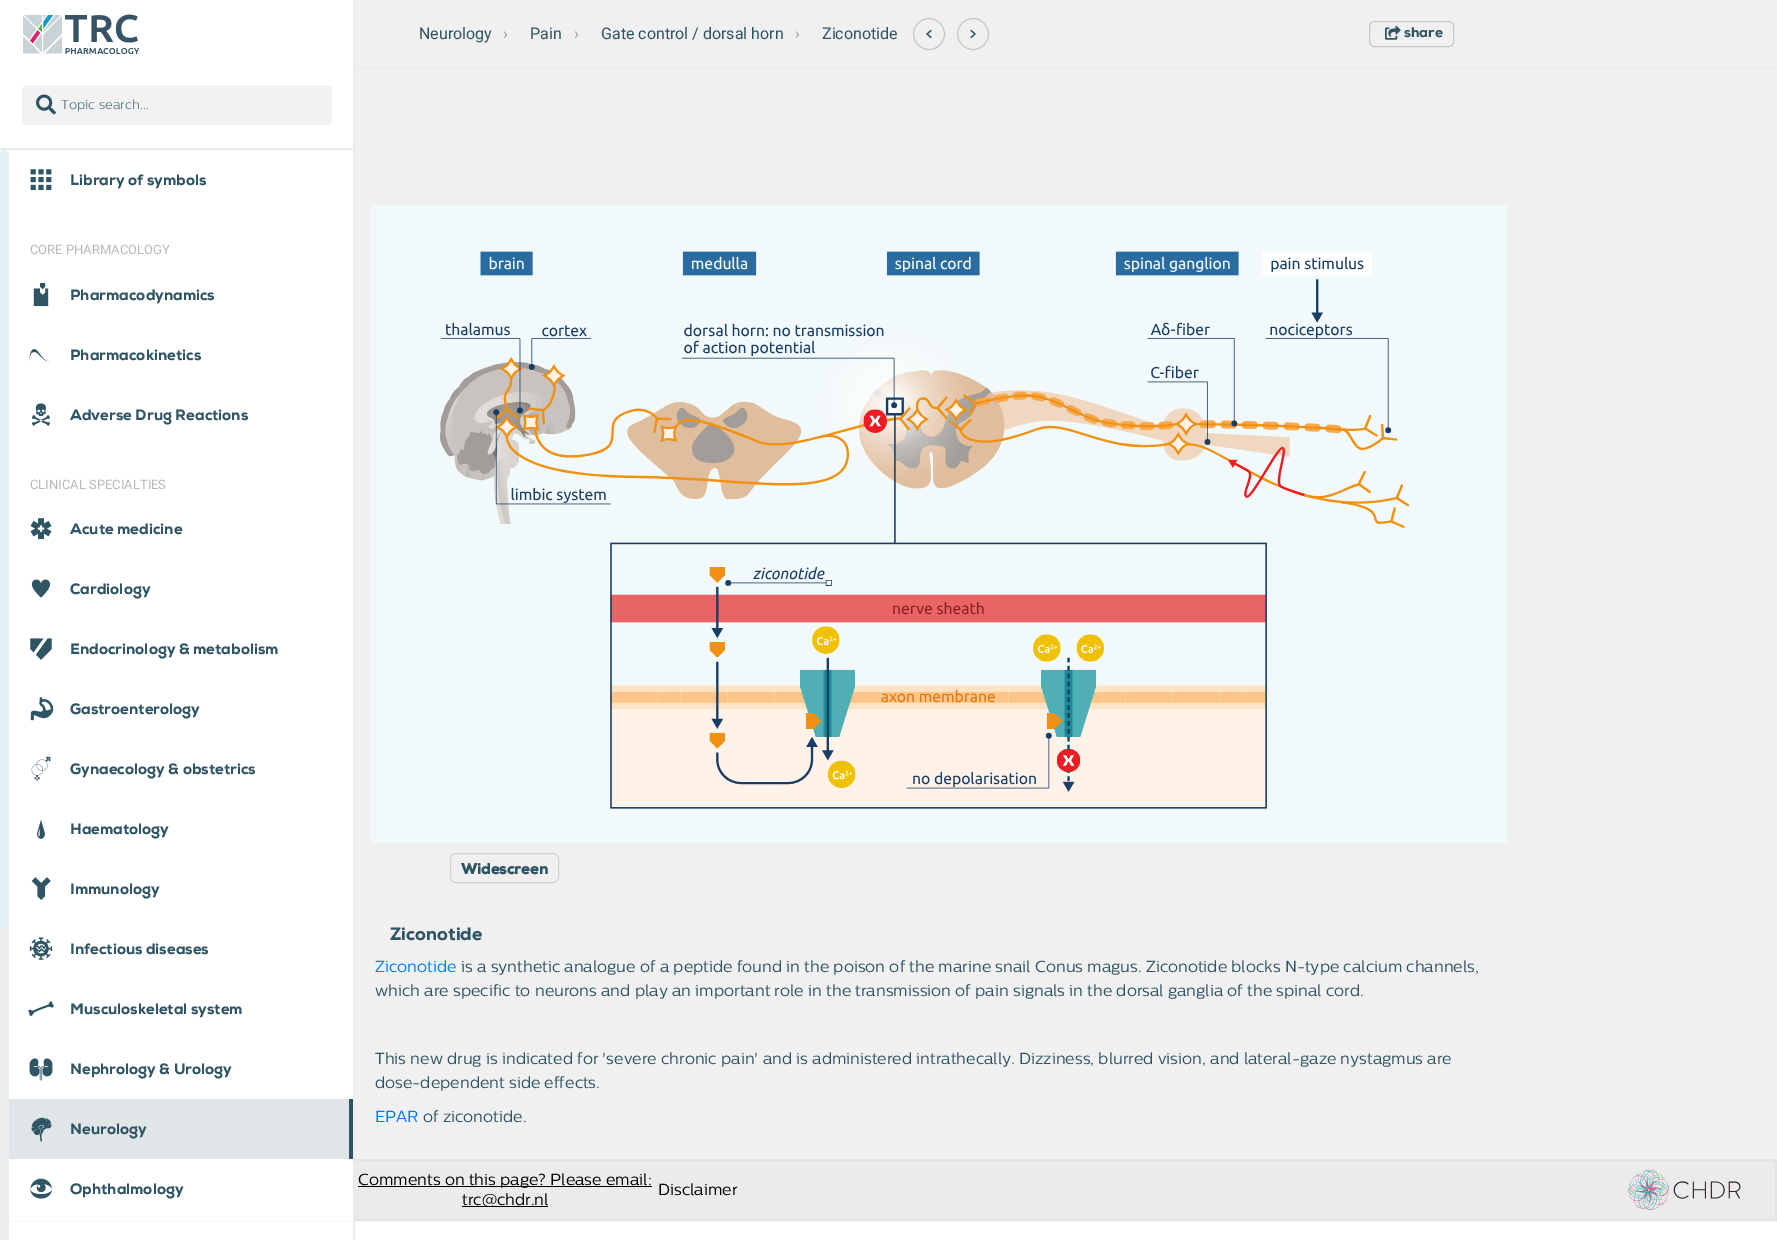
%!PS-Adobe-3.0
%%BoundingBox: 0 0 1777 1240
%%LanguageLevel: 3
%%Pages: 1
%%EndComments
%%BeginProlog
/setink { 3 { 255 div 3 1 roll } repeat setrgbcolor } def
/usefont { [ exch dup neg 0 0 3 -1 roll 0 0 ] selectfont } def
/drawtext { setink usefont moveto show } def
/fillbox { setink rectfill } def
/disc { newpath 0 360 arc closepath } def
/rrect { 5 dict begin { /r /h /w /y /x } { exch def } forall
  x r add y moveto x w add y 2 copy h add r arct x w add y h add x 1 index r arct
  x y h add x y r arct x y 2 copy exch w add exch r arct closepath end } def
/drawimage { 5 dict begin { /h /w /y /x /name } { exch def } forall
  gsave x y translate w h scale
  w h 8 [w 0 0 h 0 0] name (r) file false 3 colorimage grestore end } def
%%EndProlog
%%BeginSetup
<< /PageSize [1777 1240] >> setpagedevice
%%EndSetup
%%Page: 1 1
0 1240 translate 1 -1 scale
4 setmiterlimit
0 0 1777 1240 255 255 255 fillbox
355 1161 1420 58 235 235 235 fillbox
227 227 227 setink
2 setlinewidth
1 1160 1775 60 rectstroke
0 1159 353 62 255 255 255 fillbox
353 0 2 1240 235 235 236 fillbox
0 148 353 2 235 235 236 fillbox
(assets/img1.rgb) 23 14 117 40 drawimage
242 242 242 setink
22 85 310 40 5 rrect fill
(assets/img2.rgb) 36 94 20 21 drawimage
(Topic search...) 61 109 /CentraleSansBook-Regular 13 101 129 141 drawtext
238 238 238 setink
0 150 9 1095 4.5 rrect fill
227 243 245 setink
0 150 9 779 4 rrect fill
(assets/img3.rgb) 30 169 22 22 drawimage
(Library of symbols) 70 185 /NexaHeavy-Regular 15 47 84 100 drawtext
(CORE PHARMACOLOGY) 30 254 /Roboto-Regular 13 185 185 185 drawtext
(assets/img4.rgb) 33 283 16 24 drawimage
(Pharmacodynamics) 70 300 /NexaHeavy-Regular 15 47 84 100 drawtext
(assets/img5.rgb) 29 349 22 14 drawimage
(Pharmacokinetics) 70 360 /NexaHeavy-Regular 15 47 84 100 drawtext
(assets/img6.rgb) 31 403 19 23 drawimage
(Adverse Drug Reactions) 70 420 /NexaHeavy-Regular 15 47 84 100 drawtext
(CLINICAL SPECIALTIES) 30 489 /Roboto-Regular 13 185 185 185 drawtext
(assets/img7.rgb) 30 518 22 22 drawimage
(Acute medicine) 70 534 /NexaHeavy-Regular 15 47 84 100 drawtext
(assets/img8.rgb) 31 579 19 19 drawimage
(Cardiology) 70 594 /NexaHeavy-Regular 15 47 84 100 drawtext
(assets/img9.rgb) 30 638 22 22 drawimage
(Endocrinology & metabolism) 70 654 /NexaHeavy-Regular 15 47 84 100 drawtext
(assets/img10.rgb) 30 697 24 24 drawimage
(Gastroenterology) 70 714 /NexaHeavy-Regular 15 47 84 100 drawtext
(assets/img11.rgb) 31 756 20 25 drawimage
(Gynaecology & obstetrics) 70 774 /NexaHeavy-Regular 15 47 84 100 drawtext
(assets/img12.rgb) 37 819 8 20 drawimage
(Haematology) 70 834 /NexaHeavy-Regular 15 47 84 100 drawtext
(assets/img13.rgb) 31 877 20 23 drawimage
(Immunology) 70 894 /NexaHeavy-Regular 15 47 84 100 drawtext
(assets/img14.rgb) 29 937 24 23 drawimage
(Infectious diseases) 70 954 /NexaHeavy-Regular 15 47 84 100 drawtext
(assets/img15.rgb) 28 1001 26 15 drawimage
(Musculoskeletal system) 70 1014 /NexaHeavy-Regular 15 47 84 100 drawtext
(assets/img16.rgb) 29 1058 24 23 drawimage
(Nephrology & Urology) 70 1074 /NexaHeavy-Regular 15 47 84 100 drawtext
9 1099 340 60 224 229 232 fillbox
349 1099 4 60 47 84 100 fillbox
(assets/img17.rgb) 31 1117 21 25 drawimage
(Neurology) 70 1134 /NexaHeavy-Regular 15 47 84 100 drawtext
(assets/img18.rgb) 30 1178 22 21 drawimage
(Ophthalmology) 70 1194 /NexaHeavy-Regular 15 47 84 100 drawtext
355 0 1422 1159 240 240 240 fillbox
355 68 1422 1 229 231 235 fillbox
(Neurology) 419 39 /Roboto-Regular 16 47 84 100 drawtext
(›) 503 39 /Roboto-Regular 16 148 161 171 drawtext
(Pain) 530 39 /Roboto-Regular 16 47 84 100 drawtext
(›) 574 39 /Roboto-Regular 16 148 161 171 drawtext
(Gate control / dorsal horn) 601 39 /Roboto-Regular 16 47 84 100 drawtext
(›) 795 39 /Roboto-Regular 16 148 161 171 drawtext
(Ziconotide) 822 39 /Roboto-Regular 16 47 84 100 drawtext
198 199 201 setink
1 setlinewidth
929 34 15.5 disc stroke
47 84 100 setink
1.2 setlinewidth
1 setlinecap
1 setlinejoin
931 37.5 moveto 927 34 lineto 931 30.5 lineto stroke
198 199 201 setink
1 setlinewidth
0 setlinecap
0 setlinejoin
973 34 15.5 disc stroke
47 84 100 setink
1.2 setlinewidth
1 setlinecap
1 setlinejoin
971 37.5 moveto 975 34 lineto 971 30.5 lineto stroke
198 199 201 setink
1 setlinewidth
0 setlinecap
0 setlinejoin
1369.5 21.5 84 25 4.5 rrect stroke
(assets/img19.rgb) 1385 25 16 15 drawimage
(share) 1404 37 /NexaHeavy-Regular 14 47 84 100 drawtext
(assets/img20.rgb) 370 205 1137 638 drawimage
209 213 219 setink
450.5 853.5 108 29 5.5 rrect stroke
(Widescreen) 461 874 /NexaHeavy-Bold 15 47 84 100 drawtext
(Ziconotide) 390 940 /NexaHeavy-Regular 18 47 84 100 drawtext
(Ziconotide) 375 972 /CentraleSansBook-Regular 16 0 123 255 drawtext
(is a synthetic analogue of a peptide found in the poison of the marine snail Conus magus. Ziconotide blocks N-type calcium channels,) 461 972 /CentraleSansBook-Regular 16 47 84 100 drawtext
(which are specific to neurons and play an important role in the transmission of pain signals in the dorsal ganglia of the spinal cord.) 375 996 /CentraleSansBook-Regular 16 47 84 100 drawtext
(This new drug is indicated for 'severe chronic pain' and is administered intrathecally. Dizziness, blurred vision, and lateral-gaze nystagmus are) 375 1064 /CentraleSansBook-Regular 16 47 84 100 drawtext
(dose-dependent side effects.) 375 1088 /CentraleSansBook-Regular 16 47 84 100 drawtext
(EPAR) 375 1122 /CentraleSansBook-Regular 16 0 123 255 drawtext
(of ziconotide.) 423 1122 /CentraleSansBook-Regular 16 47 84 100 drawtext
358 1186 294 1 0 0 0 fillbox
(Comments on this page? Please email:) 358 1185 /CentraleSansBook-Regular 16 0 0 0 drawtext
462 1206 86 1 0 0 0 fillbox
(trc@chdr.nl) 462 1205 /CentraleSansBook-Regular 16 0 0 0 drawtext
(Disclaimer) 658 1195 /CentraleSansBook-Regular 16 0 0 0 drawtext
(assets/img21.rgb) 1628 1170 113 40 drawimage
showpage
%%EOF
